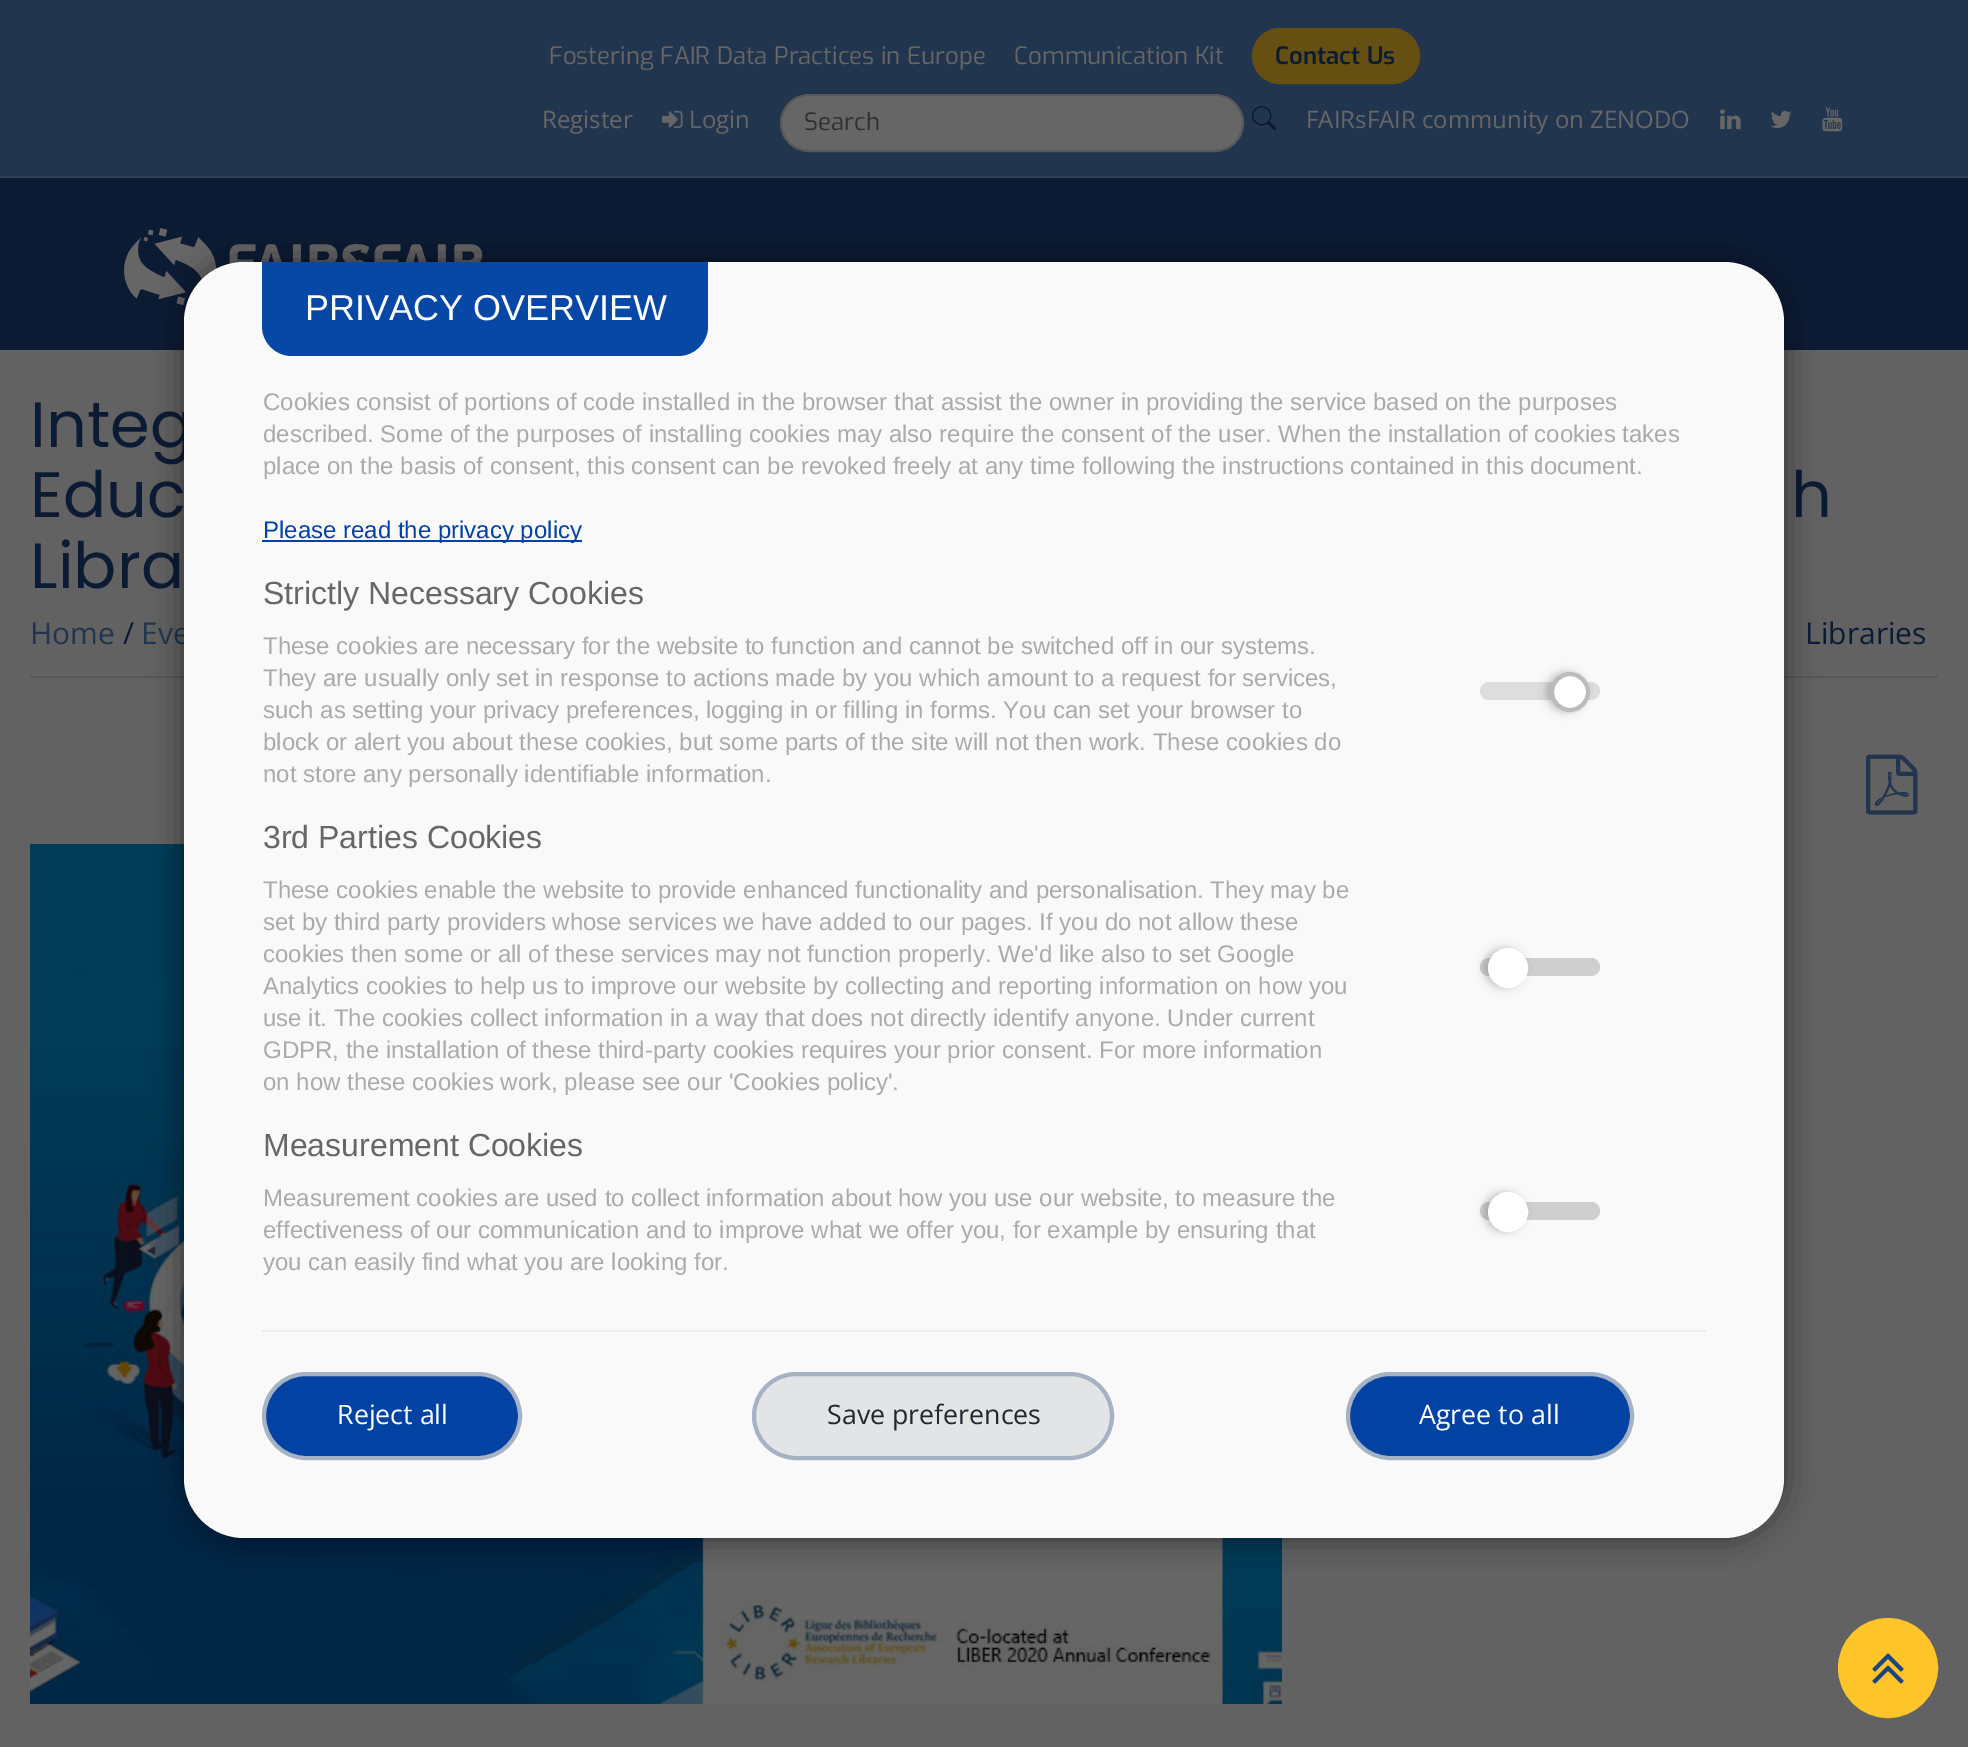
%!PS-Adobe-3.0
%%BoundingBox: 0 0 1968 1747
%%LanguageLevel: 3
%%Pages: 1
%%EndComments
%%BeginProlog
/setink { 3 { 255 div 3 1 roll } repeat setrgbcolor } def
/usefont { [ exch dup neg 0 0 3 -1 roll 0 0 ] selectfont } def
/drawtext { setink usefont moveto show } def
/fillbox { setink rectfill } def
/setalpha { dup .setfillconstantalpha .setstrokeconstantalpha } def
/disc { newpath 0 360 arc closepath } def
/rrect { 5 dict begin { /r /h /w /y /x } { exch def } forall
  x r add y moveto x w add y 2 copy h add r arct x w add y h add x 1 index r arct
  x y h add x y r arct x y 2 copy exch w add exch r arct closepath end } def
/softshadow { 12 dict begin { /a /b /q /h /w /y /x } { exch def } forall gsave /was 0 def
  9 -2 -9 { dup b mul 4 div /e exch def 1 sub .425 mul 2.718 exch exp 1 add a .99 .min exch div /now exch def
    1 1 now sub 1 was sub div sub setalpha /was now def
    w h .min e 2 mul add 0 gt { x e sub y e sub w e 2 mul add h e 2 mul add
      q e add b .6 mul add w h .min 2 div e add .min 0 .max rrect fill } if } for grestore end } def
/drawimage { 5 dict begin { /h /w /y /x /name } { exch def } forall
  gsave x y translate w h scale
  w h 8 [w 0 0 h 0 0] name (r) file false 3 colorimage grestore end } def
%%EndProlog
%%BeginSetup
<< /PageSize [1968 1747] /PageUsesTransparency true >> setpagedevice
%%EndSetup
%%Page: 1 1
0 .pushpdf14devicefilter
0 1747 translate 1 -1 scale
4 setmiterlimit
0 0 1968 1747 98 98 98 fillbox
0 0 1968 176 34 53 79 fillbox
0 176 1968 2 48 63 84 fillbox
(Fostering FAIR Data Practices in Europe) 549 64 /Exo-Regular 24 102 102 102 drawtext
(Communication Kit) 1014 64 /Exo-Regular 24 102 102 102 drawtext
101 79 17 setink
1254 30 164 52 26 rrect gsave fill grestore
4 setlinewidth
stroke
(Contact Us) 1275 64 /Exo-SemiBold 24 12 27 52 drawtext
(Register) 542 128 /OpenSans-Regular 24 102 102 102 drawtext
(assets/img1.rgb) 662 110 21 18 drawimage
(Login) 689 128 /OpenSans-Regular 24 102 102 102 drawtext
781 95 462 56 28 rrect gsave fill grestore
88 88 88 setink
2 setlinewidth
stroke
(Search) 804 130 /Exo-Regular 24 47 47 47 drawtext
(assets/img2.rgb) 1252 106 24 24 drawimage
(FAIRsFAIR community on ZENODO) 1306 128 /OpenSans-Regular 24 102 102 102 drawtext
(assets/img3.rgb) 1720 109 21 21 drawimage
(assets/img4.rgb) 1770 110 22 18 drawimage
(assets/img5.rgb) 1822 107 21 25 drawimage
0 178 1968 172 12 27 52 fillbox
(assets/img6.rgb) 124 228 359 77 drawimage
(Integ) 30 447 /Poppins-Regular 64 12 27 52 drawtext
(Educ) 30 517 /Poppins-Regular 64 12 27 52 drawtext
(h) 1791 517 /Poppins-Regular 64 12 27 52 drawtext
(Libra) 30 588 /Poppins-Regular 64 12 27 52 drawtext
30 676 1908 2 88 88 88 fillbox
(Home) 30 644 /OpenSans-Regular 30 34 53 79 drawtext
(/) 123 644 /OpenSans-Regular 30 12 27 52 drawtext
(Eve) 141 644 /OpenSans-Regular 30 34 53 79 drawtext
(Libraries) 1805 644 /OpenSans-Regular 30 12 27 52 drawtext
(assets/img7.rgb) 1866 754 52 61 drawimage
(assets/img8.rgb) 30 844 1252 860 drawimage
0 0 0 setink
184 262 1600 1276 60 15 0.53 softshadow
249 249 249 setink
184 262 1600 1276 60 rrect fill
7 71 166 setink
262 262 moveto 708 262 lineto 708 326 lineto 708 342.5 694.5 356 678 356 curveto 292 356 lineto 275.5 356 262 342.5 262 326 curveto closepath fill
(PRIVACY OVERVIEW) 305 320 /LiberationSans-Regular 36 255 255 255 drawtext
(Cookies consist of portions of code installed in the browser that assist the owner in providing the service based on the purposes) 263 410 /LiberationSans-Regular 24 170 170 170 drawtext
(described. Some of the purposes of installing cookies may also require the consent of the user. When the installation of cookies takes) 263 442 /LiberationSans-Regular 24 170 170 170 drawtext
(place on the basis of consent, this consent can be revoked freely at any time following the instructions contained in this document.) 263 474 /LiberationSans-Regular 24 170 170 170 drawtext
262 540 320 2 2 66 162 fillbox
(Please read the privacy policy) 263 538 /LiberationSans-Regular 24 2 66 162 drawtext
(Strictly Necessary Cookies) 263 604 /LiberationSans-Regular 32 102 102 102 drawtext
(These cookies are necessary for the website to function and cannot be switched off in our systems.) 263 654 /LiberationSans-Regular 24 170 170 170 drawtext
(They are usually only set in response to actions made by you which amount to a request for services,) 263 686 /LiberationSans-Regular 24 170 170 170 drawtext
(such as setting your privacy preferences, logging in or filling in forms. You can set your browser to) 263 718 /LiberationSans-Regular 24 170 170 170 drawtext
(block or alert you about these cookies, but some parts of the site will not then work. These cookies do) 263 750 /LiberationSans-Regular 24 170 170 170 drawtext
(not store any personally identifiable information.) 263 782 /LiberationSans-Regular 24 170 170 170 drawtext
221 221 221 setink
1480 682 120 18 9 rrect fill
0 0 0 setink
1546 672 40 40 20 4 0.2 softshadow
255 255 255 setink
1570 692 18 disc gsave fill grestore
187 187 187 setink
4 setlinewidth
stroke
(3rd Parties Cookies) 263 848 /LiberationSans-Regular 32 102 102 102 drawtext
(These cookies enable the website to provide enhanced functionality and personalisation. They may be) 263 898 /LiberationSans-Regular 24 170 170 170 drawtext
(set by third party providers whose services we have added to our pages. If you do not allow these) 263 930 /LiberationSans-Regular 24 170 170 170 drawtext
(cookies then some or all of these services may not function properly. We'd like also to set Google) 263 962 /LiberationSans-Regular 24 170 170 170 drawtext
(Analytics cookies to help us to improve our website by collecting and reporting information on how you) 263 994 /LiberationSans-Regular 24 170 170 170 drawtext
(use it. The cookies collect information in a way that does not directly identify anyone. Under current) 263 1026 /LiberationSans-Regular 24 170 170 170 drawtext
(GDPR, the installation of these third-party cookies requires your prior consent. For more information) 263 1058 /LiberationSans-Regular 24 170 170 170 drawtext
(on how these cookies work, please see our 'Cookies policy'.) 263 1090 /LiberationSans-Regular 24 170 170 170 drawtext
207 207 207 setink
1480 958 120 18 9 rrect fill
0 0 0 setink
1484 948 40 40 20 4 0.2 softshadow
255 255 255 setink
1508 968 18 disc gsave fill grestore
stroke
(Measurement Cookies) 263 1156 /LiberationSans-Regular 32 102 102 102 drawtext
(Measurement cookies are used to collect information about how you use our website, to measure the) 263 1206 /LiberationSans-Regular 24 170 170 170 drawtext
(effectiveness of our communication and to improve what we offer you, for example by ensuring that) 263 1238 /LiberationSans-Regular 24 170 170 170 drawtext
(you can easily find what you are looking for.) 263 1270 /LiberationSans-Regular 24 170 170 170 drawtext
207 207 207 setink
1480 1202 120 18 9 rrect fill
0 0 0 setink
1484 1192 40 40 20 4 0.2 softshadow
255 255 255 setink
1508 1212 18 disc gsave fill grestore
stroke
262 1330 1444 2 238 238 238 fillbox
2 66 162 setink
264 1374 256 84 42 rrect gsave fill grestore
165 178 195 setink
stroke
(Reject all) 337 1424 /OpenSans-Regular 26.75 255 255 255 drawtext
227 228 229 setink
754 1374 358 84 42 rrect gsave fill grestore
165 178 195 setink
stroke
(Save preferences) 827 1424 /OpenSans-Regular 26.75 34 40 49 drawtext
2 66 162 setink
1348 1374 284 84 42 rrect gsave fill grestore
165 178 195 setink
stroke
(Agree to all) 1419 1424 /OpenSans-Regular 26.75 255 255 255 drawtext
253 197 42 setink
1888 1668 48 disc gsave fill grestore
stroke
(assets/img9.rgb) 1872 1653 32 31 drawimage
.poppdf14devicefilter showpage
%%EOF
